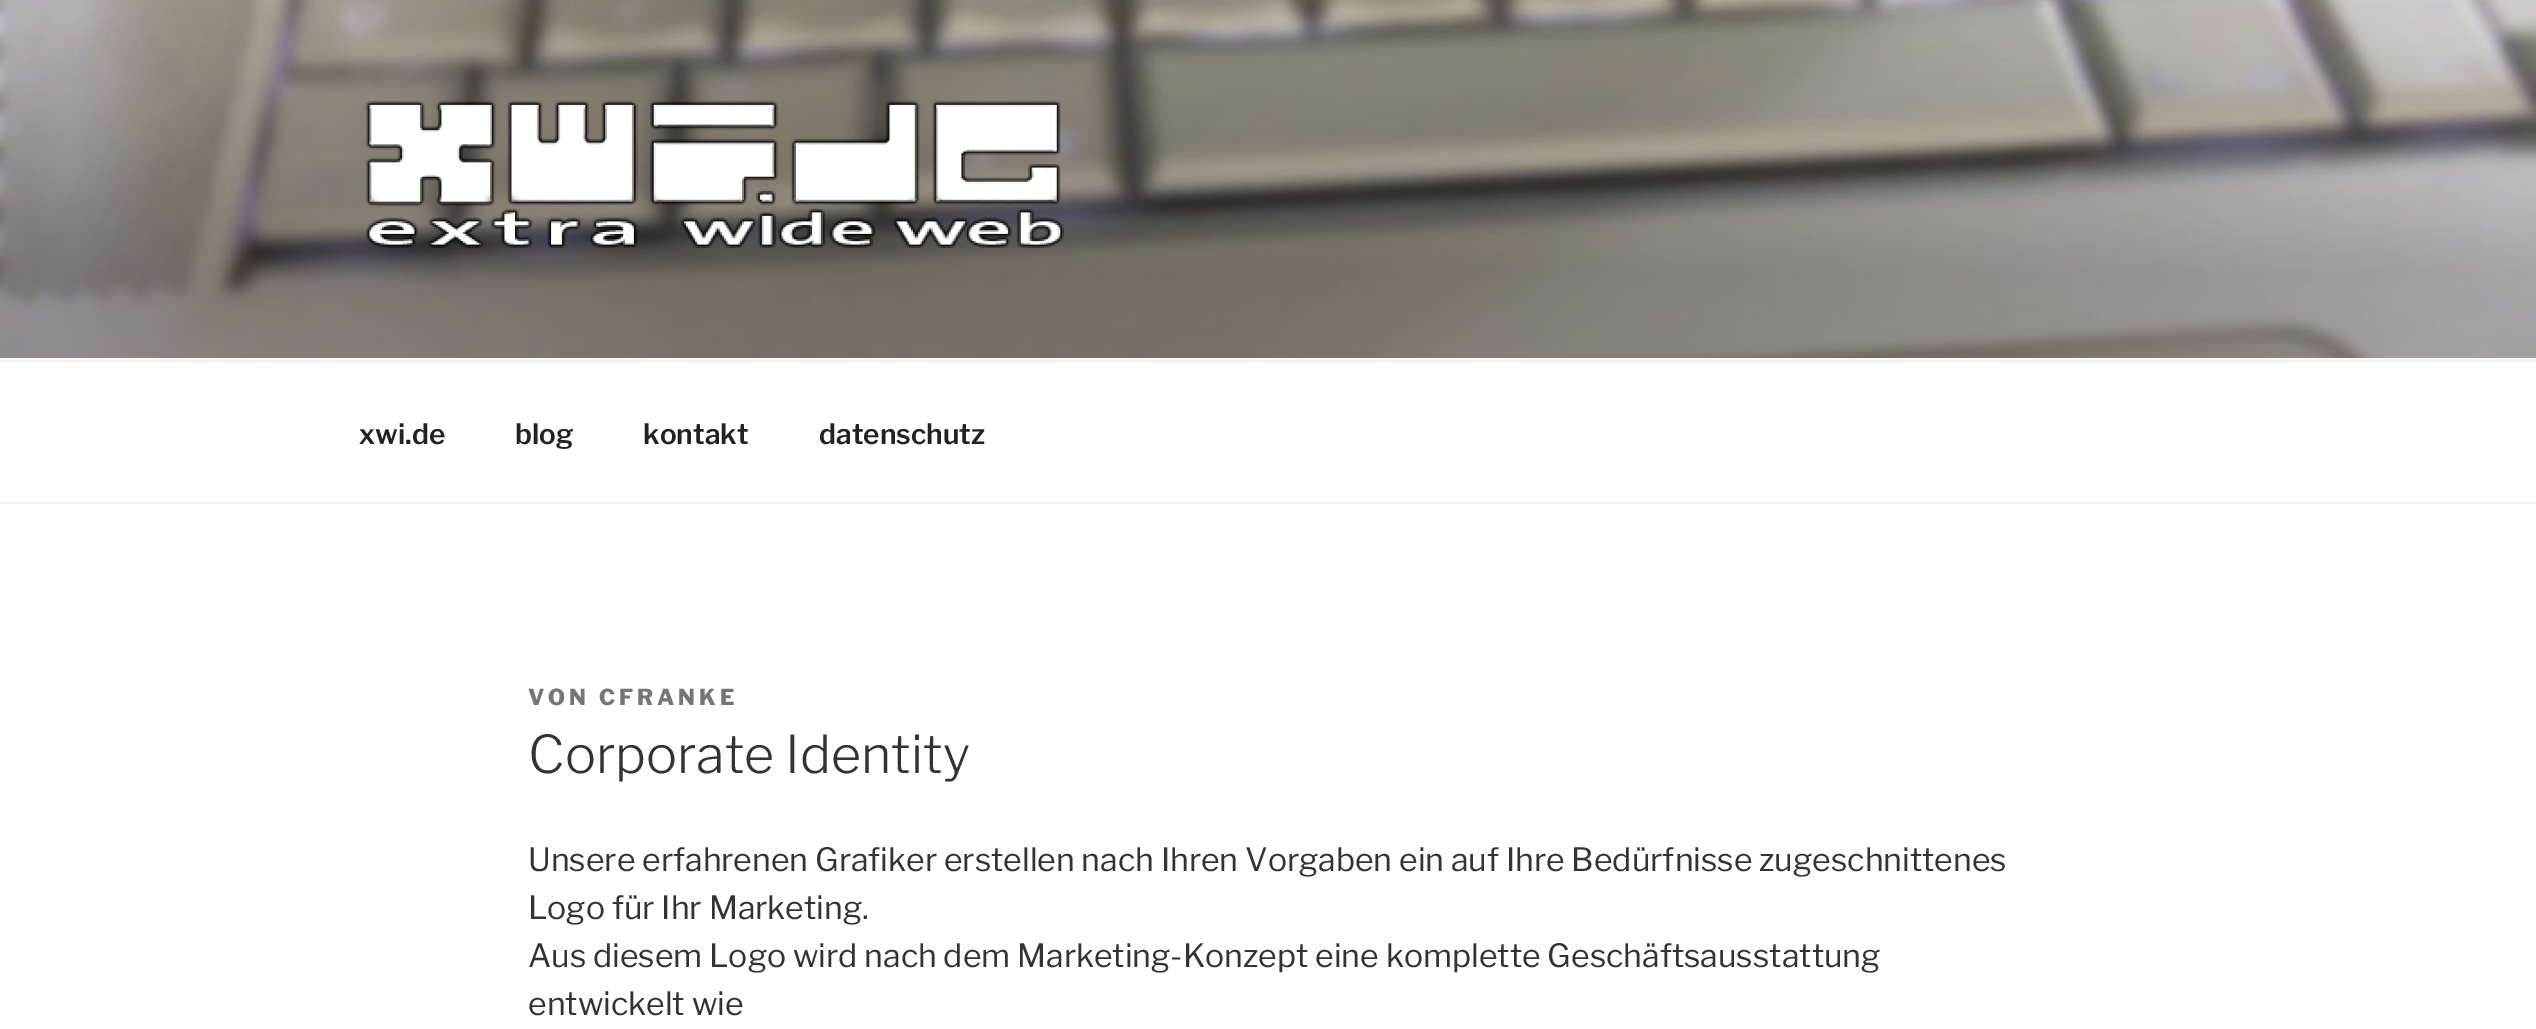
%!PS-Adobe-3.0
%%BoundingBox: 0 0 2536 1029
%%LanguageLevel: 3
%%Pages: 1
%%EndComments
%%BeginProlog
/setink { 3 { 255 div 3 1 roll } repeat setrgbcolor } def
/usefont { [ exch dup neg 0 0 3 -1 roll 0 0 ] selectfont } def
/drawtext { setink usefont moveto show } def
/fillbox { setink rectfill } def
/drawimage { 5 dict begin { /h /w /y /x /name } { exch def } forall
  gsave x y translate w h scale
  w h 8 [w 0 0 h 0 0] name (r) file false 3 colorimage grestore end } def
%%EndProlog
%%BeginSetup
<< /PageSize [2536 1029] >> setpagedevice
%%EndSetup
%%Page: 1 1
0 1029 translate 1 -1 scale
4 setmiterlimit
0 0 2536 1029 255 255 255 fillbox
0 358 2536 2 250 250 250 fillbox
(assets/img1.rgb) 0 0 2536 358 drawimage
(assets/img2.rgb) 366 101 698 147 drawimage
0 360 2536 2 238 238 238 fillbox
0 502 2536 2 238 238 238 fillbox
(xwi.de) 359 444 /LibreFranklin-SemiBold 28 34 34 34 drawtext
(blog) 515 444 /LibreFranklin-SemiBold 28 34 34 34 drawtext
(kontakt) 643 444 /LibreFranklin-SemiBold 28 34 34 34 drawtext
(datenschutz) 819 444 /LibreFranklin-SemiBold 28 34 34 34 drawtext
/LibreFranklin-ExtraBold 22 usefont
118 118 118 setink
528 705 moveto 4 0 (VON CFRANKE) ashow
(Corporate Identity) 528 773 /LibreFranklin-Light 52 51 51 51 drawtext
(Unsere erfahrenen Grafiker erstellen nach Ihren Vorgaben ein auf Ihre Bedürfnisse zugeschnittenes) 528 871 /LibreFranklin-Regular 32 51 51 51 drawtext
(Logo für Ihr Marketing.) 528 919 /LibreFranklin-Regular 32 51 51 51 drawtext
(Aus diesem Logo wird nach dem Marketing-Konzept eine komplette Geschäftsausstattung) 528 967 /LibreFranklin-Regular 32 51 51 51 drawtext
(entwickelt wie) 528 1015 /LibreFranklin-Regular 32 51 51 51 drawtext
showpage
%%EOF
